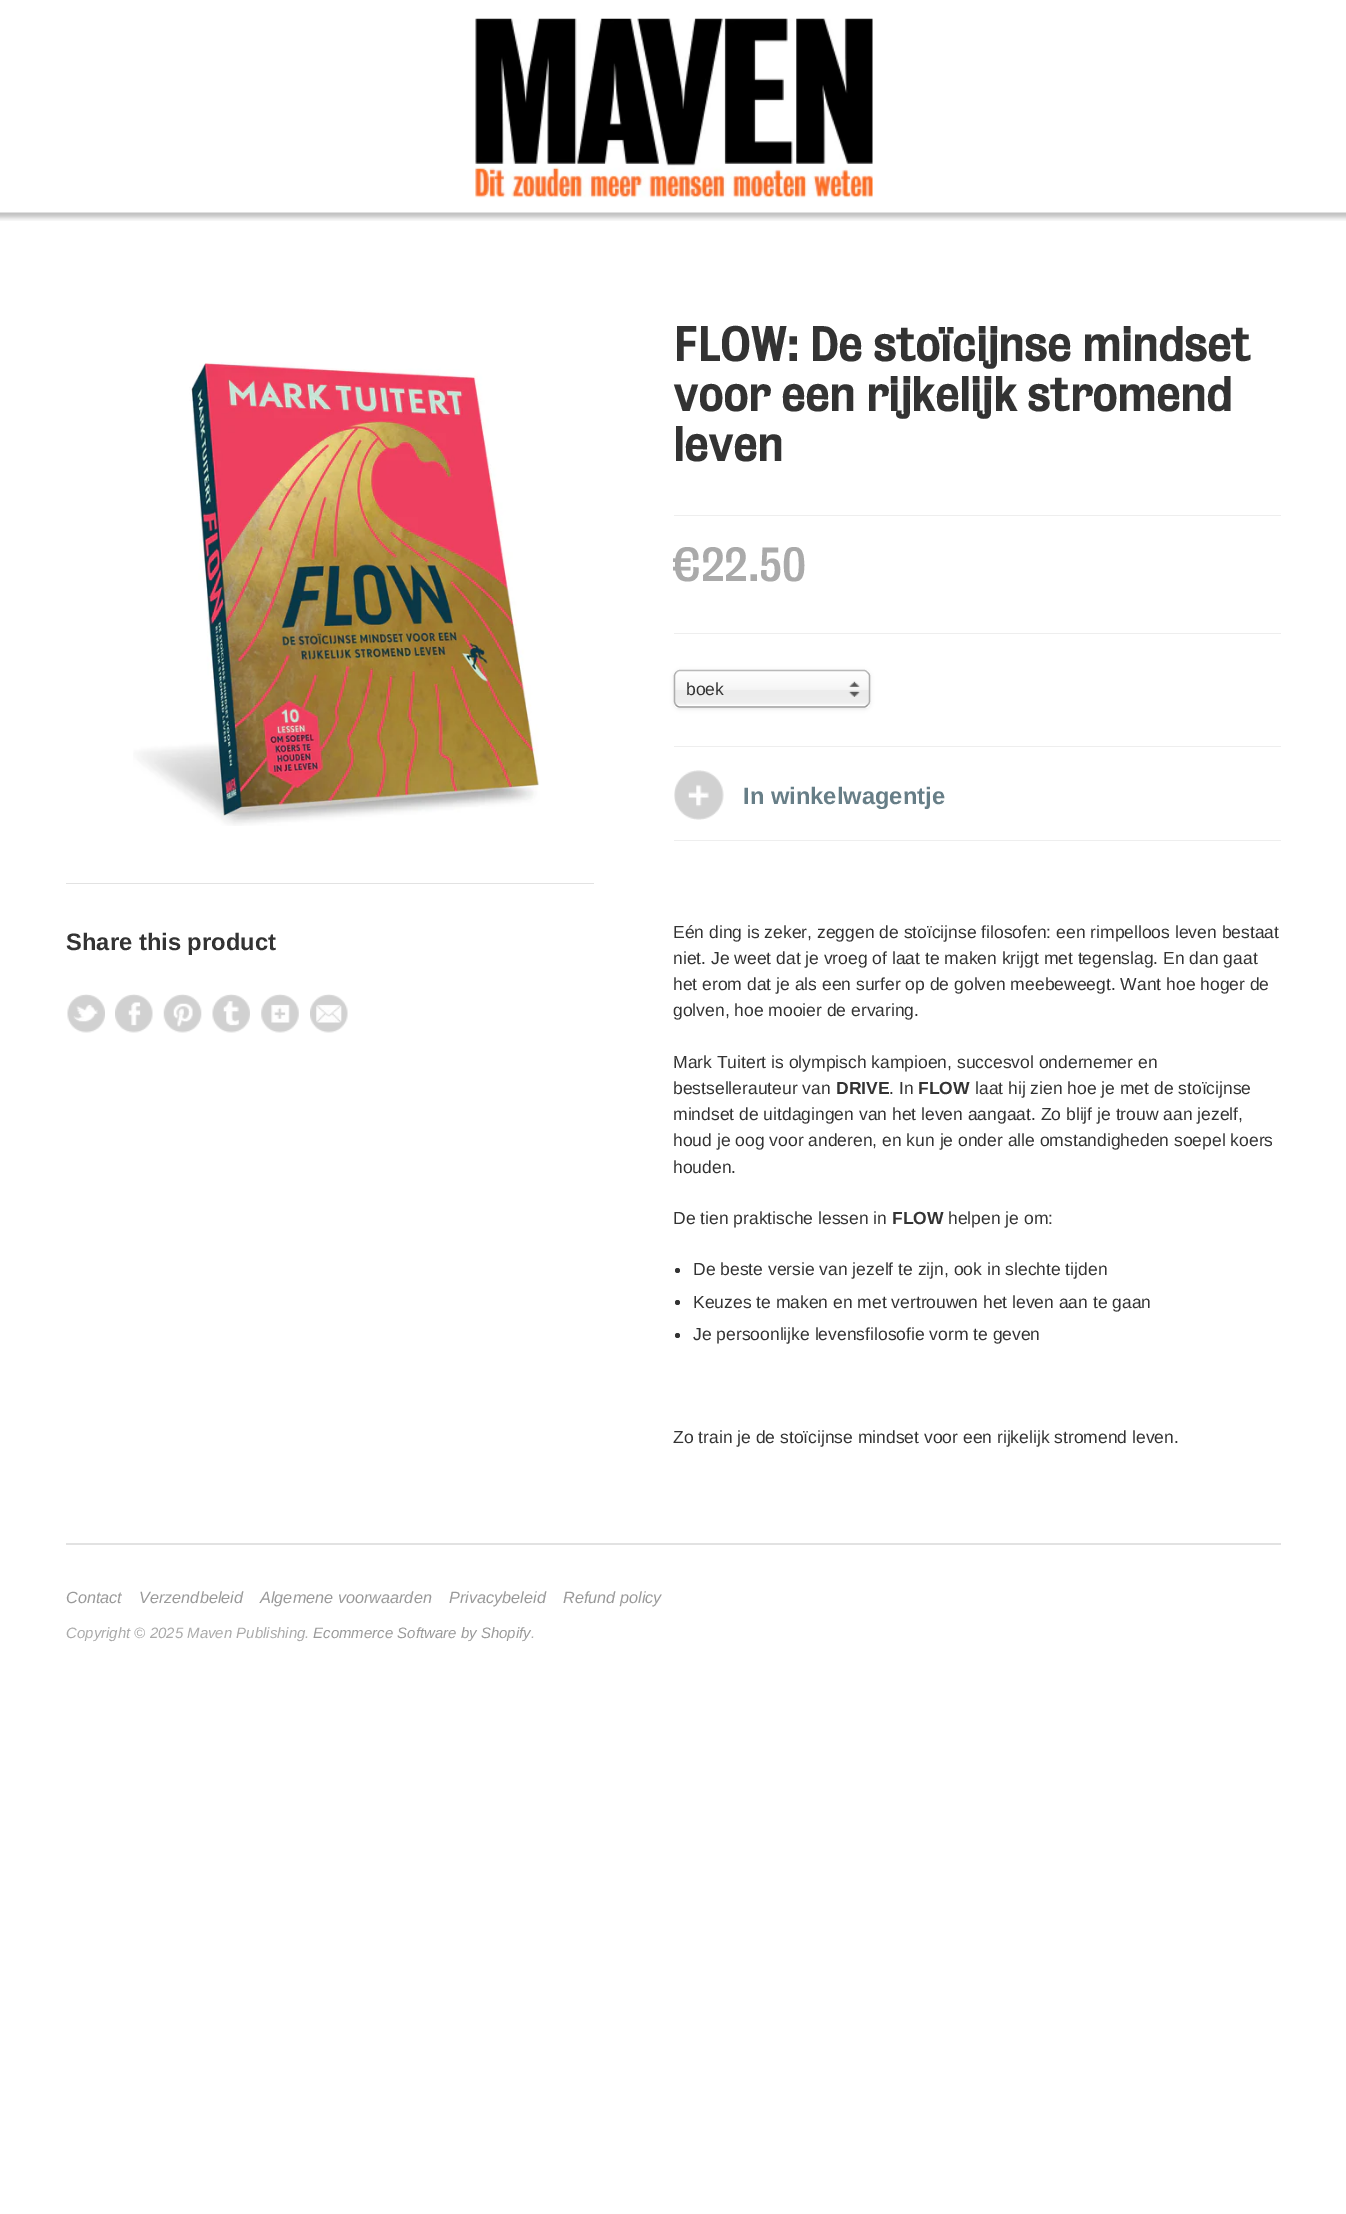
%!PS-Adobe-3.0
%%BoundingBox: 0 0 1346 2214
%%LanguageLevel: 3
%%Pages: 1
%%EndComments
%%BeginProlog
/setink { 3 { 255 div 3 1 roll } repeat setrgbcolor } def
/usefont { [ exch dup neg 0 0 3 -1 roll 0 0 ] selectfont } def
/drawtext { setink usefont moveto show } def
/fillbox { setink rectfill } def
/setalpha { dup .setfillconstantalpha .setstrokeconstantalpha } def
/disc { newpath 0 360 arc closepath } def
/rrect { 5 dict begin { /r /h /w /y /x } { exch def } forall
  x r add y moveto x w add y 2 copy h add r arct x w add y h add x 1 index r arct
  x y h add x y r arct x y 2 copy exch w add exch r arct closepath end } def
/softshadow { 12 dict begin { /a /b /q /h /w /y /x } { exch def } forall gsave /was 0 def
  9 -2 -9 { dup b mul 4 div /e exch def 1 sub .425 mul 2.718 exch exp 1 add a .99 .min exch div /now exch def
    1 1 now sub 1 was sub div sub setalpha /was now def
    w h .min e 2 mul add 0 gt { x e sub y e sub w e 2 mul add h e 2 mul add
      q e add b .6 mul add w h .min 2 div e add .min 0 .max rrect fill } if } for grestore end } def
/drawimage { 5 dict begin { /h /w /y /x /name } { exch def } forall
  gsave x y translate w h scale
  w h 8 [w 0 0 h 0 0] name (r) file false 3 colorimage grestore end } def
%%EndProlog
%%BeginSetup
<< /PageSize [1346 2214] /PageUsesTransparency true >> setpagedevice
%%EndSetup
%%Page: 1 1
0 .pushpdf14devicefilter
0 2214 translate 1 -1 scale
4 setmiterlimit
0 0 1346 2214 255 255 255 fillbox
(assets/img1.rgb) 0 212 1346 9 drawimage
(assets/img2.rgb) 475 18 398 180 drawimage
(assets/img3.rgb) 133 362 407 464 drawimage
66 883 528 1 226 226 226 fillbox
(Share this product) 66 950 /LiberationSans-Bold 23.75 51 51 51 drawtext
(assets/img4.rgb) 67 994 38 39 drawimage
(assets/img5.rgb) 115 994 38 39 drawimage
(assets/img6.rgb) 163 994 39 39 drawimage
(assets/img7.rgb) 212 994 38 39 drawimage
(assets/img8.rgb) 261 994 38 39 drawimage
(assets/img9.rgb) 310 994 38 39 drawimage
674 515 607 1 238 238 238 fillbox
(FLOW: De stoïcijnse mindset) 673 361 /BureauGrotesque-Bold 43.75 51 51 51 drawtext
(voor een rijkelijk stromend) 673 411 /BureauGrotesque-Bold 43.75 51 51 51 drawtext
(leven) 673 461 /BureauGrotesque-Bold 43.75 51 51 51 drawtext
674 633 607 1 238 238 238 fillbox
(€22.50) 673 581 /BureauGrotesque-Medium 43.75 170 170 170 drawtext
674 746 607 1 238 238 238 fillbox
0 0 0 setink
674 671 196 38 6 2 0.1 softshadow
gsave
674 670 196 38 6 rrect clip newpath
gsave 674 670 moveto 870 670 lineto 870 671 lineto 674 671 lineto closepath clip newpath
<< /ShadingType 2 /ColorSpace /DeviceRGB /Coords [772 636 772 671] /Extend [true true] /Function << /FunctionType 3 /Domain [0 1] /Functions [<< /FunctionType 2 /Domain [0 1] /C0 [1 1 1] /C1 [0.961 0.961 0.961] /N 1 >> << /FunctionType 2 /Domain [0 1] /C0 [0.961 0.961 0.961] /C1 [0.925 0.925 0.925] /N 1 >> << /FunctionType 2 /Domain [0 1] /C0 [0.925 0.925 0.925] /C1 [0.933 0.933 0.933] /N 1 >> << /FunctionType 2 /Domain [0 1] /C0 [0.933 0.933 0.933] /C1 [1 1 1] /N 1 >>] /Bounds [0.53 0.54 0.91] /Encode [0 1 0 1 0 1 0 1] >> >> shfill grestore
gsave 674 671 moveto 870 671 lineto 870 706 lineto 674 706 lineto closepath clip newpath
<< /ShadingType 2 /ColorSpace /DeviceRGB /Coords [772 671 772 706] /Extend [true true] /Function << /FunctionType 3 /Domain [0 1] /Functions [<< /FunctionType 2 /Domain [0 1] /C0 [1 1 1] /C1 [0.961 0.961 0.961] /N 1 >> << /FunctionType 2 /Domain [0 1] /C0 [0.961 0.961 0.961] /C1 [0.925 0.925 0.925] /N 1 >> << /FunctionType 2 /Domain [0 1] /C0 [0.925 0.925 0.925] /C1 [0.933 0.933 0.933] /N 1 >> << /FunctionType 2 /Domain [0 1] /C0 [0.933 0.933 0.933] /C1 [1 1 1] /N 1 >>] /Bounds [0.53 0.54 0.91] /Encode [0 1 0 1 0 1 0 1] >> >> shfill grestore
gsave 674 706 moveto 870 706 lineto 870 708 lineto 674 708 lineto closepath clip newpath
<< /ShadingType 2 /ColorSpace /DeviceRGB /Coords [772 706 772 741] /Extend [true true] /Function << /FunctionType 3 /Domain [0 1] /Functions [<< /FunctionType 2 /Domain [0 1] /C0 [1 1 1] /C1 [0.961 0.961 0.961] /N 1 >> << /FunctionType 2 /Domain [0 1] /C0 [0.961 0.961 0.961] /C1 [0.925 0.925 0.925] /N 1 >> << /FunctionType 2 /Domain [0 1] /C0 [0.925 0.925 0.925] /C1 [0.933 0.933 0.933] /N 1 >> << /FunctionType 2 /Domain [0 1] /C0 [0.933 0.933 0.933] /C1 [1 1 1] /N 1 >>] /Bounds [0.53 0.54 0.91] /Encode [0 1 0 1 0 1 0 1] >> >> shfill grestore
grestore
185 185 185 setink
1.2 setlinewidth
676 672.5 moveto 677 671 678.5 670.5 680 670.5 curveto 864 670.5 lineto 865 670.5 866.5 671 867.5 672.5 curveto stroke
174 174 174 setink
867.5 672.5 moveto 869 673.5 869.5 675 869.5 676 curveto 869.5 701 lineto 869.5 702.5 869 704 867.5 705 curveto stroke
155 155 155 setink
867.5 705 moveto 866.5 706.5 865 707 864 707 curveto 680 707 lineto 678.5 707 677 706.5 676 705 curveto stroke
174 174 174 setink
676 705 moveto 675 704 674.5 702.5 674.5 701 curveto 674.5 676 lineto 674.5 675 675 673.5 676 672.5 curveto stroke
(assets/img10.rgb) 848 681 12 16 drawimage
(boek) 686 695 /LiberationSans-Regular 17.5 51 51 51 drawtext
674 840 607 1 238 238 238 fillbox
(assets/img11.rgb) 674 770 50 50 drawimage
(In winkelwagentje) 743 804 /LiberationSans-Bold 23.75 103 126 135 drawtext
(Eén ding is zeker, zeggen de stoïcijnse filosofen: een rimpelloos leven bestaat) 673 938 /LiberationSans-Regular 17.5 51 51 51 drawtext
(niet. Je weet dat je vroeg of laat te maken krijgt met tegenslag. En dan gaat) 673 964 /LiberationSans-Regular 17.5 51 51 51 drawtext
(het erom dat je als een surfer op de golven meebeweegt. Want hoe hoger de) 673 990 /LiberationSans-Regular 17.5 51 51 51 drawtext
(golven, hoe mooier de ervaring.) 673 1016 /LiberationSans-Regular 17.5 51 51 51 drawtext
(Mark Tuitert is olympisch kampioen, succesvol ondernemer en) 673 1068 /LiberationSans-Regular 17.5 51 51 51 drawtext
(bestsellerauteur van) 673 1094 /LiberationSans-Regular 17.5 51 51 51 drawtext
(DRIVE) 836 1094 /LiberationSans-Bold 17.5 51 51 51 drawtext
(. In) 889 1094 /LiberationSans-Regular 17.5 51 51 51 drawtext
(FLOW) 918 1094 /LiberationSans-Bold 17.5 51 51 51 drawtext
(laat hij zien hoe je met de stoïcijnse) 975 1094 /LiberationSans-Regular 17.5 51 51 51 drawtext
(mindset de uitdagingen van het leven aangaat. Zo blijf je trouw aan jezelf,) 673 1120 /LiberationSans-Regular 17.5 51 51 51 drawtext
(houd je oog voor anderen, en kun je onder alle omstandigheden soepel koers) 673 1146 /LiberationSans-Regular 17.5 51 51 51 drawtext
(houden.) 673 1173 /LiberationSans-Regular 17.5 51 51 51 drawtext
(De tien praktische lessen in) 673 1224 /LiberationSans-Regular 17.5 51 51 51 drawtext
(FLOW) 892 1224 /LiberationSans-Bold 17.5 51 51 51 drawtext
(helpen je om:) 948 1224 /LiberationSans-Regular 17.5 51 51 51 drawtext
677.5 1270.5 2.5 disc fill
(De beste versie van jezelf te zijn, ook in slechte tijden) 693 1275 /LiberationSans-Regular 17.5 51 51 51 drawtext
677.5 1302.5 2.5 disc fill
(Keuzes te maken en met vertrouwen het leven aan te gaan) 693 1308 /LiberationSans-Regular 17.5 51 51 51 drawtext
677.5 1335.5 2.5 disc fill
(Je persoonlijke levensfilosofie vorm te geven) 693 1340 /LiberationSans-Regular 17.5 51 51 51 drawtext
(Zo train je de stoïcijnse mindset voor een rijkelijk stromend leven.) 673 1443 /LiberationSans-Regular 17.5 51 51 51 drawtext
66 1543 1215 2 226 226 226 fillbox
(Contact) 66 1603 /LiberationSans-Italic 16.25 153 153 153 drawtext
(Verzendbeleid) 139 1603 /LiberationSans-Italic 16.25 153 153 153 drawtext
(Algemene voorwaarden) 260 1603 /LiberationSans-Italic 16.25 153 153 153 drawtext
(Privacybeleid) 449 1603 /LiberationSans-Italic 16.25 153 153 153 drawtext
(Refund policy) 563 1603 /LiberationSans-Italic 16.25 153 153 153 drawtext
(Copyright © 2025 Maven Publishing.) 66 1638 /LiberationSans-Italic 15 170 170 170 drawtext
(Ecommerce Software by Shopify) 313 1638 /LiberationSans-Italic 15 153 153 153 drawtext
(.) 531 1638 /LiberationSans-Italic 15 170 170 170 drawtext
.poppdf14devicefilter showpage
%%EOF
